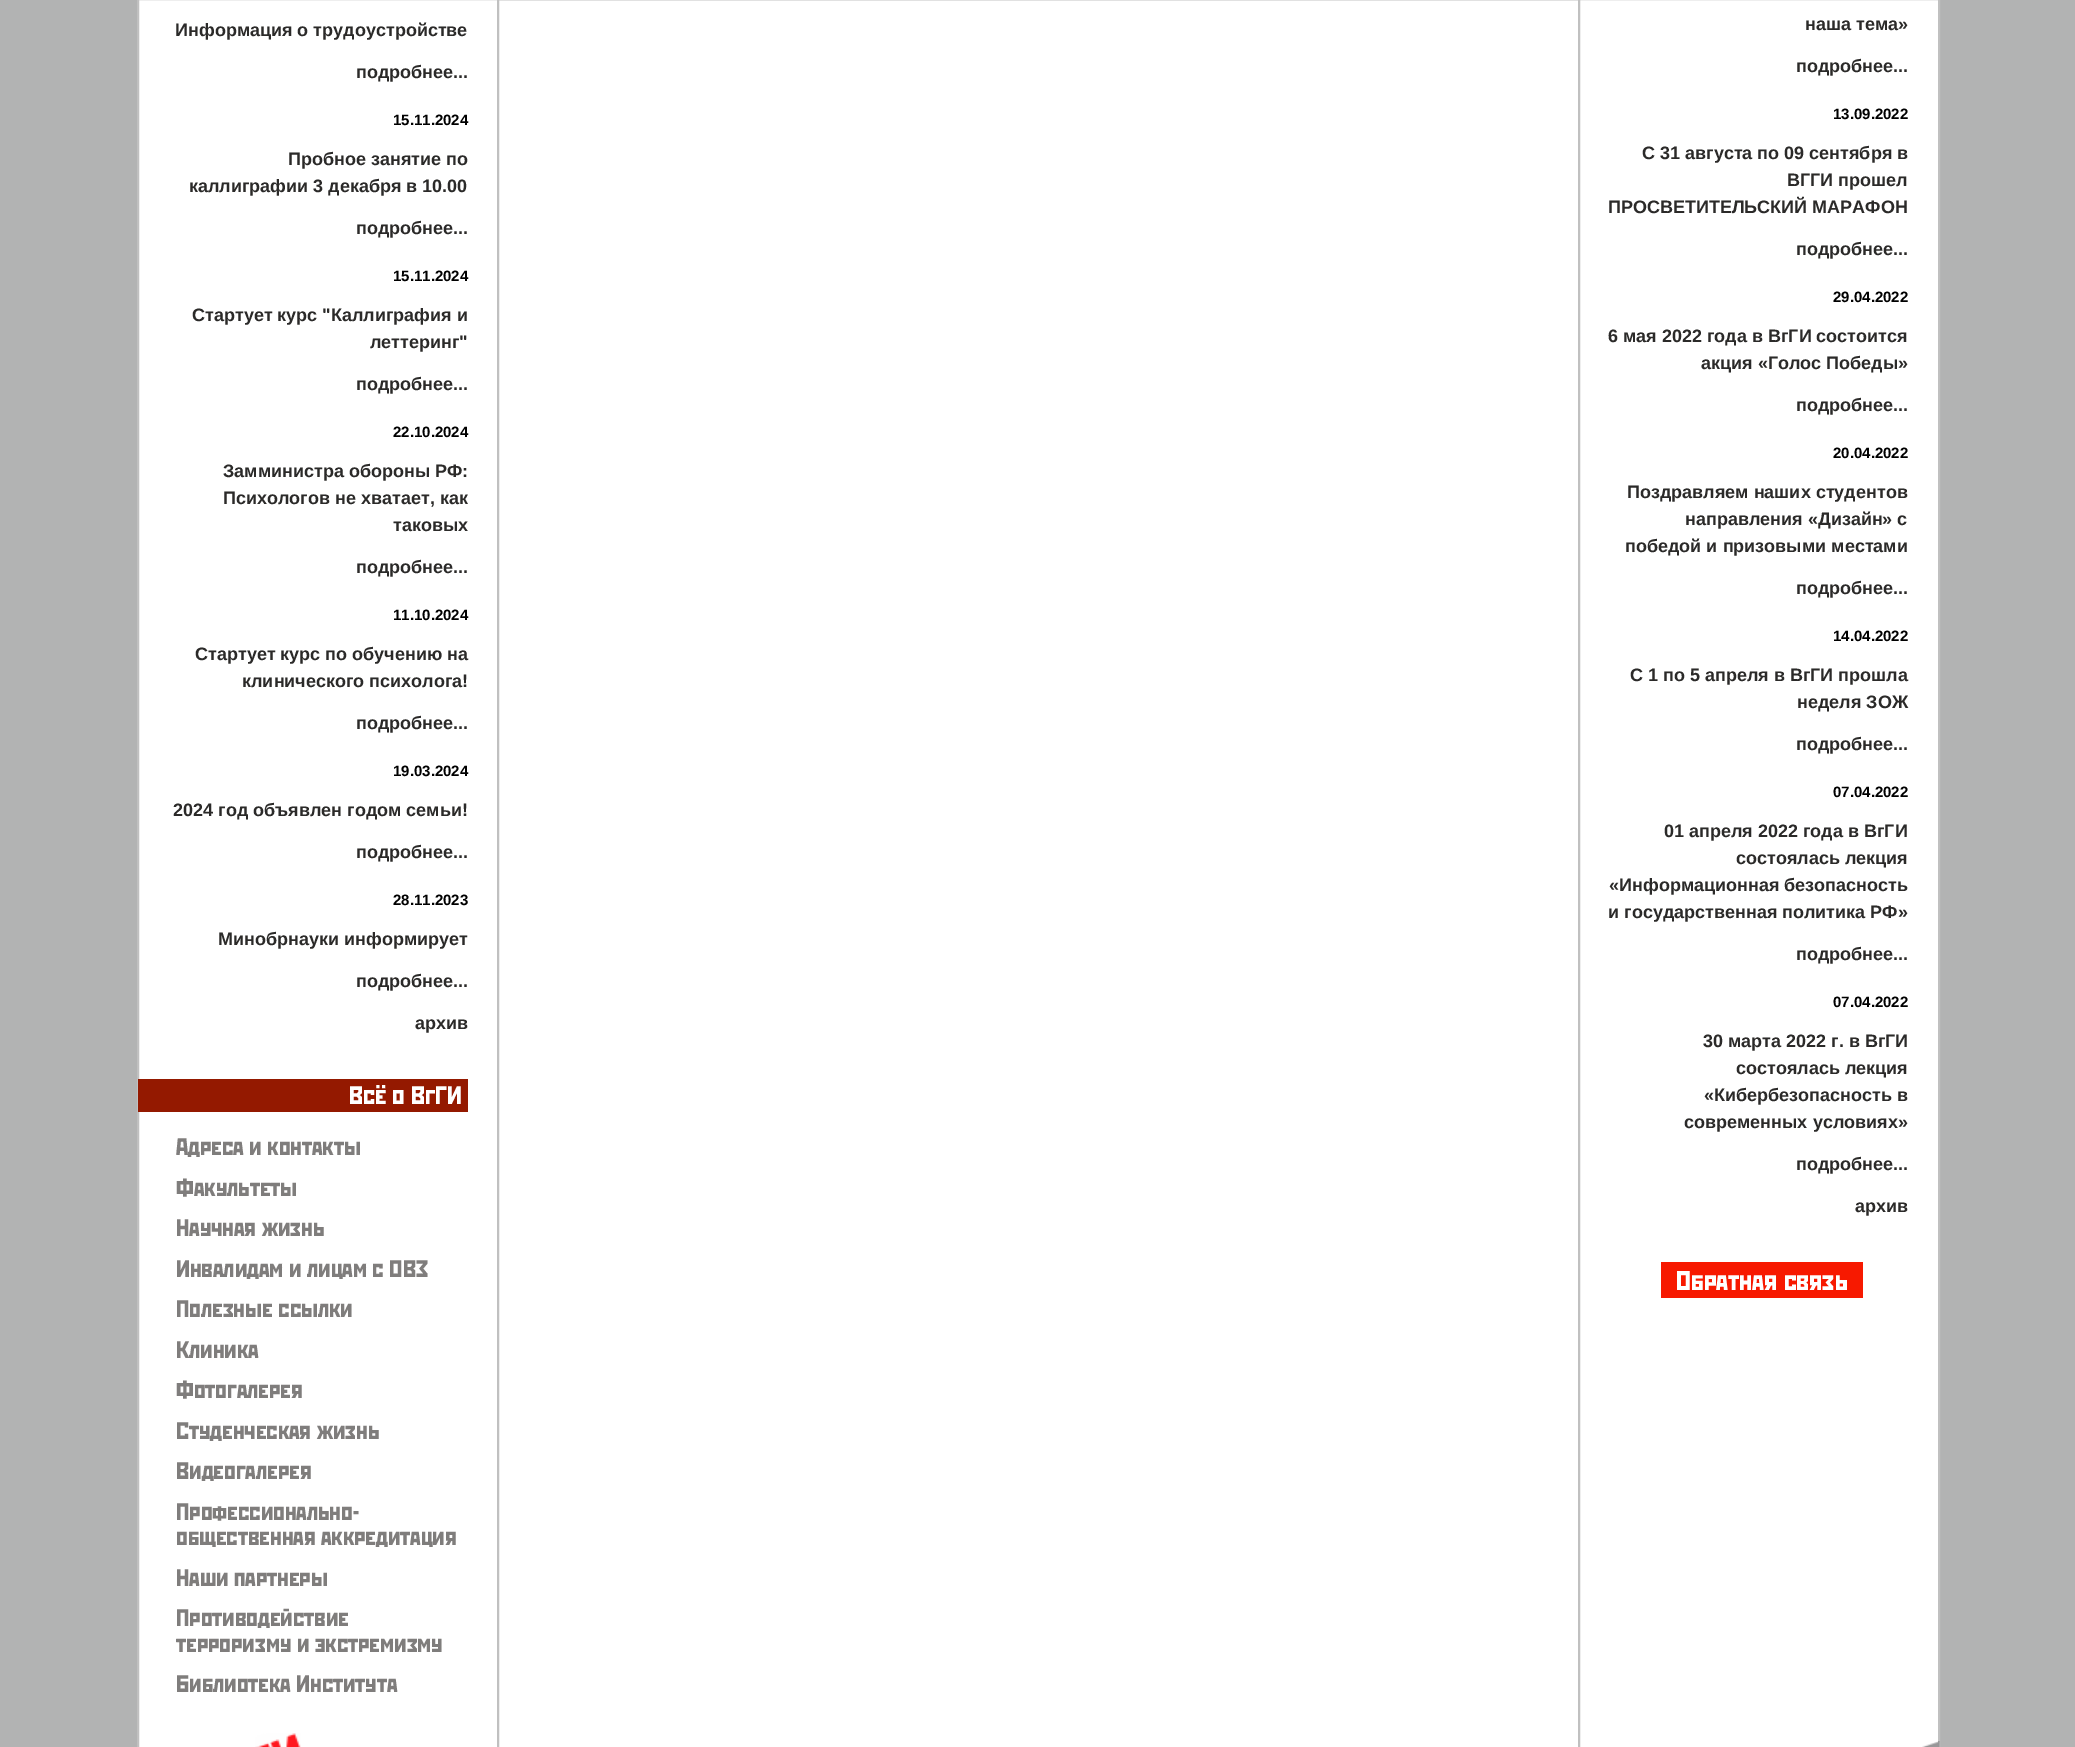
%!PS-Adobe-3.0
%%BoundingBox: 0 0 2075 1747
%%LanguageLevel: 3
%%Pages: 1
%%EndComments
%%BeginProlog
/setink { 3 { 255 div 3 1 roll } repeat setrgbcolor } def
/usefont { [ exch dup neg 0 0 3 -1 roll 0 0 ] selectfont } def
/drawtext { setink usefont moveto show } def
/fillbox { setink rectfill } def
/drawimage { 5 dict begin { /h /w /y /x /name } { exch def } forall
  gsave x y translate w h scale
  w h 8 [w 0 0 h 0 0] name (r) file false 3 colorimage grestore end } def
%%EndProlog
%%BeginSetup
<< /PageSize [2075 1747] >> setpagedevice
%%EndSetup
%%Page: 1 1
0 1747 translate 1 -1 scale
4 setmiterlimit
0 0 2075 1747 178 179 179 fillbox
255 255 255 setink
138 -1 moveto 1939 -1 lineto 1939 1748 lineto 138 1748 lineto closepath gsave fill grestore
192 192 192 setink
2 setlinewidth
stroke
(Информация о трудоустройстве) 175 36 /LiberationSans-Bold 18 43 42 41 drawtext
(подробнее...) 356 78 /LiberationSans-Bold 18 43 42 41 drawtext
(15.11.2024) 393 125 /LiberationSans-Bold 15 0 0 0 drawtext
(Пробное занятие по) 288 165 /LiberationSans-Bold 18 43 42 41 drawtext
(каллиграфии 3 декабря в 10.00) 189 192 /LiberationSans-Bold 18 43 42 41 drawtext
(подробнее...) 356 234 /LiberationSans-Bold 18 43 42 41 drawtext
(15.11.2024) 393 281 /LiberationSans-Bold 15 0 0 0 drawtext
(Стартует курс "Каллиграфия и) 192 321 /LiberationSans-Bold 18 43 42 41 drawtext
(леттеринг") 370 348 /LiberationSans-Bold 18 43 42 41 drawtext
(подробнее...) 356 390 /LiberationSans-Bold 18 43 42 41 drawtext
(22.10.2024) 393 437 /LiberationSans-Bold 15 0 0 0 drawtext
(Замминистра обороны РФ:) 223 477 /LiberationSans-Bold 18 43 42 41 drawtext
(Психологов не хватает, как) 223 504 /LiberationSans-Bold 18 43 42 41 drawtext
(таковых) 393 531 /LiberationSans-Bold 18 43 42 41 drawtext
(подробнее...) 356 573 /LiberationSans-Bold 18 43 42 41 drawtext
(11.10.2024) 393 620 /LiberationSans-Bold 15 0 0 0 drawtext
(Стартует курс по обучению на) 195 660 /LiberationSans-Bold 18 43 42 41 drawtext
(клинического психолога!) 242 687 /LiberationSans-Bold 18 43 42 41 drawtext
(подробнее...) 356 729 /LiberationSans-Bold 18 43 42 41 drawtext
(19.03.2024) 393 776 /LiberationSans-Bold 15 0 0 0 drawtext
(2024 год объявлен годом семьи!) 173 816 /LiberationSans-Bold 18 43 42 41 drawtext
(подробнее...) 356 858 /LiberationSans-Bold 18 43 42 41 drawtext
(28.11.2023) 393 905 /LiberationSans-Bold 15 0 0 0 drawtext
(Минобрнауки информирует) 218 945 /LiberationSans-Bold 18 43 42 41 drawtext
(подробнее...) 356 987 /LiberationSans-Bold 18 43 42 41 drawtext
(архив) 415 1029 /LiberationSans-Bold 18 43 42 41 drawtext
138 1079 330 33 148 25 0 fillbox
(Всё о ВгГИ) 349 1104 /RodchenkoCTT-Regular 25.5 255 255 255 drawtext
(Адреса и контакты) 176 1155 /RodchenkoCTT-Regular 24 127 125 124 drawtext
(Факультеты) 176 1196 /RodchenkoCTT-Regular 24 127 125 124 drawtext
(Научная жизнь) 176 1236 /RodchenkoCTT-Regular 24 127 125 124 drawtext
(Инвалидам и лицам с ОВЗ) 176 1277 /RodchenkoCTT-Regular 24 127 125 124 drawtext
(Полезные ссылки) 176 1317 /RodchenkoCTT-Regular 24 127 125 124 drawtext
(Клиника) 176 1358 /RodchenkoCTT-Regular 24 127 125 124 drawtext
(Фотогалерея) 176 1398 /RodchenkoCTT-Regular 24 127 125 124 drawtext
(Студенческая жизнь) 176 1439 /RodchenkoCTT-Regular 24 127 125 124 drawtext
(Видеогалерея) 176 1479 /RodchenkoCTT-Regular 24 127 125 124 drawtext
(Профессионально-) 176 1520 /RodchenkoCTT-Regular 24 127 125 124 drawtext
(общественная аккредитация) 176 1545 /RodchenkoCTT-Regular 24 127 125 124 drawtext
(Наши партнеры) 176 1586 /RodchenkoCTT-Regular 24 127 125 124 drawtext
(Противодействие) 176 1626 /RodchenkoCTT-Regular 24 127 125 124 drawtext
(терроризму и экстремизму) 176 1652 /RodchenkoCTT-Regular 24 127 125 124 drawtext
(Библиотека Института) 176 1692 /RodchenkoCTT-Regular 24 127 125 124 drawtext
(assets/img1.rgb) 255 1733 46 14 drawimage
192 192 192 setink
498 -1 1081 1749 rectstroke
(наша тема») 1805 30 /LiberationSans-Bold 18 43 42 41 drawtext
(подробнее...) 1796 72 /LiberationSans-Bold 18 43 42 41 drawtext
(13.09.2022) 1833 119 /LiberationSans-Bold 15 0 0 0 drawtext
(С 31 августа по 09 сентября в) 1642 159 /LiberationSans-Bold 18 43 42 41 drawtext
(ВГГИ прошел) 1787 186 /LiberationSans-Bold 18 43 42 41 drawtext
(ПРОСВЕТИТЕЛЬСКИЙ МАРАФОН) 1608 213 /LiberationSans-Bold 18 43 42 41 drawtext
(подробнее...) 1796 255 /LiberationSans-Bold 18 43 42 41 drawtext
(29.04.2022) 1833 302 /LiberationSans-Bold 15 0 0 0 drawtext
(6 мая 2022 года в ВгГИ состоится) 1608 342 /LiberationSans-Bold 18 43 42 41 drawtext
(акция «Голос Победы») 1701 369 /LiberationSans-Bold 18 43 42 41 drawtext
(подробнее...) 1796 411 /LiberationSans-Bold 18 43 42 41 drawtext
(20.04.2022) 1833 458 /LiberationSans-Bold 15 0 0 0 drawtext
(Поздравляем наших студентов) 1627 498 /LiberationSans-Bold 18 43 42 41 drawtext
(направления «Дизайн» с) 1685 525 /LiberationSans-Bold 18 43 42 41 drawtext
(победой и призовыми местами) 1625 552 /LiberationSans-Bold 18 43 42 41 drawtext
(подробнее...) 1796 594 /LiberationSans-Bold 18 43 42 41 drawtext
(14.04.2022) 1833 641 /LiberationSans-Bold 15 0 0 0 drawtext
(С 1 по 5 апреля в ВгГИ прошла) 1630 681 /LiberationSans-Bold 18 43 42 41 drawtext
(неделя ЗОЖ) 1797 708 /LiberationSans-Bold 18 43 42 41 drawtext
(подробнее...) 1796 750 /LiberationSans-Bold 18 43 42 41 drawtext
(07.04.2022) 1833 797 /LiberationSans-Bold 15 0 0 0 drawtext
(01 апреля 2022 года в ВгГИ) 1664 837 /LiberationSans-Bold 18 43 42 41 drawtext
(состоялась лекция) 1736 864 /LiberationSans-Bold 18 43 42 41 drawtext
(«Информационная безопасность) 1609 891 /LiberationSans-Bold 18 43 42 41 drawtext
(и государственная политика РФ») 1608 918 /LiberationSans-Bold 18 43 42 41 drawtext
(подробнее...) 1796 960 /LiberationSans-Bold 18 43 42 41 drawtext
(07.04.2022) 1833 1007 /LiberationSans-Bold 15 0 0 0 drawtext
(30 марта 2022 г. в ВгГИ) 1703 1047 /LiberationSans-Bold 18 43 42 41 drawtext
(состоялась лекция) 1736 1074 /LiberationSans-Bold 18 43 42 41 drawtext
(«Кибербезопасность в) 1704 1101 /LiberationSans-Bold 18 43 42 41 drawtext
(современных условиях») 1684 1128 /LiberationSans-Bold 18 43 42 41 drawtext
(подробнее...) 1796 1170 /LiberationSans-Bold 18 43 42 41 drawtext
(архив) 1855 1212 /LiberationSans-Bold 18 43 42 41 drawtext
1661 1262 202 36 247 25 0 fillbox
(Обратная связь) 1676 1290 /RodchenkoCTT-Regular 27 255 255 255 drawtext
(assets/img2.rgb) 1922 1741 18 6 drawimage
showpage
%%EOF
